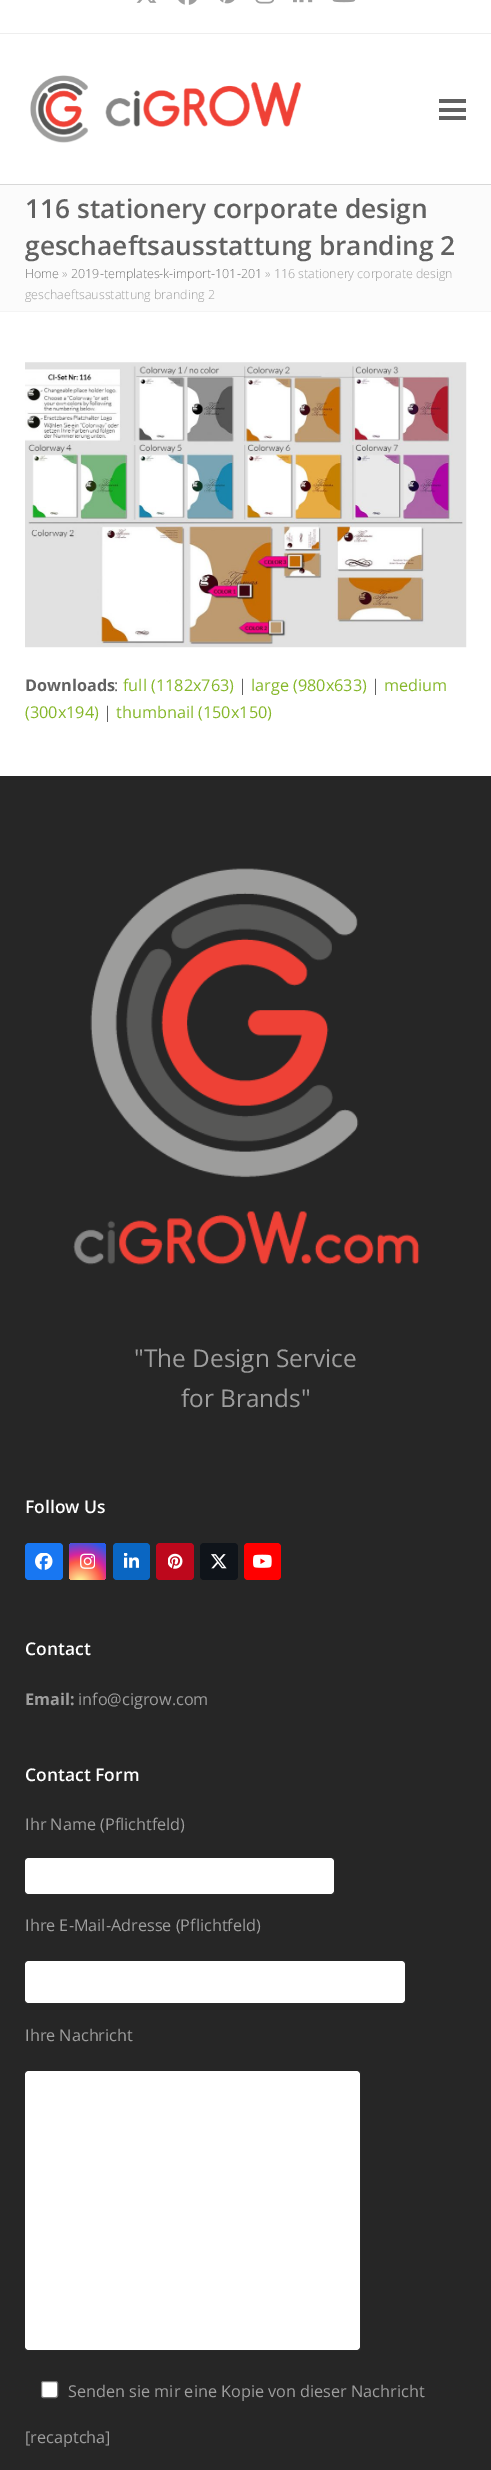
%!PS-Adobe-3.0
%%BoundingBox: 0 0 491 2470
%%LanguageLevel: 3
%%Pages: 1
%%EndComments
%%BeginProlog
/setink { 3 { 255 div 3 1 roll } repeat setrgbcolor } def
/usefont { [ exch dup neg 0 0 3 -1 roll 0 0 ] selectfont } def
/drawtext { setink usefont moveto show } def
/fillbox { setink rectfill } def
/setalpha { dup .setfillconstantalpha .setstrokeconstantalpha } def
/rrect { 5 dict begin { /r /h /w /y /x } { exch def } forall
  x r add y moveto x w add y 2 copy h add r arct x w add y h add x 1 index r arct
  x y h add x y r arct x y 2 copy exch w add exch r arct closepath end } def
/drawimage { 5 dict begin { /h /w /y /x /name } { exch def } forall
  gsave x y translate w h scale
  w h 8 [w 0 0 h 0 0] name (r) file false 3 colorimage grestore end } def
%%EndProlog
%%BeginSetup
<< /PageSize [491 2470] /PageUsesTransparency true >> setpagedevice
%%EndSetup
%%Page: 1 1
0 .pushpdf14devicefilter
0 2470 translate 1 -1 scale
4 setmiterlimit
0 0 491 2470 255 255 255 fillbox
0 33 491 1 238 238 238 fillbox
(assets/img1.rgb) 136 0 21 3 drawimage
(assets/img2.rgb) 178 0 19 5 drawimage
(assets/img3.rgb) 220 0 15 4 drawimage
(assets/img4.rgb) 255 0 19 4 drawimage
(assets/img5.rgb) 293 0 20 3 drawimage
(assets/img6.rgb) 332 0 24 3 drawimage
(assets/img7.rgb) 30 75 272 68 drawimage
439 108 27 4 97 97 97 fillbox
439 99 27 4 97 97 97 fillbox
439 116 27 4 97 97 97 fillbox
0 185 491 126 251 251 251 fillbox
0 184 491 1 216 216 216 fillbox
0 311 491 1 244 244 244 fillbox
(116 stationery corporate design) 25 218 /OpenSans-SemiBold 26.25 97 97 97 drawtext
(geschaeftsausstattung branding 2) 25 255 /OpenSans-SemiBold 26.25 97 97 97 drawtext
(Home) 25 278 /OpenSans-Light 12.5 117 117 117 drawtext
(») 62 278 /OpenSans-Light 12.5 158 158 158 drawtext
(2019-templates-k-import-101-201) 71 278 /OpenSans-Light 12.5 117 117 117 drawtext
(» 116 stationery corporate design) 265 278 /OpenSans-Light 12.5 158 158 158 drawtext
(geschaeftsausstattung branding 2) 25 299 /OpenSans-Light 12.5 158 158 158 drawtext
(assets/img8.rgb) 25 362 442 286 drawimage
(Downloads) 25 691 /OpenSans-Bold 16.25 97 97 97 drawtext
(:) 114 691 /OpenSans-Regular 16.25 97 97 97 drawtext
(full \(1182x763\)) 123 691 /OpenSans-Regular 16.25 134 183 42 drawtext
(|) 238 691 /OpenSans-Regular 16.25 97 97 97 drawtext
(large \(980x633\)) 251 691 /OpenSans-Regular 16.25 134 183 42 drawtext
(|) 371 691 /OpenSans-Regular 16.25 97 97 97 drawtext
(medium) 384 691 /OpenSans-Regular 16.25 134 183 42 drawtext
(\(300x194\)) 25 718 /OpenSans-Regular 16.25 134 183 42 drawtext
(|) 103 718 /OpenSans-Regular 16.25 97 97 97 drawtext
(thumbnail \(150x150\)) 116 718 /OpenSans-Regular 16.25 134 183 42 drawtext
0 776 491 1694 38 38 38 fillbox
(assets/img9.rgb) 73 868 347 397 drawimage
("The Design Service) 134 1367 /OpenSans-Regular 24.4 158 158 158 drawtext
(for Brands") 181 1407 /OpenSans-Regular 24.4 158 158 158 drawtext
(Follow Us) 25 1513 /OpenSans-SemiBold 17.5 255 255 255 drawtext
24 119 242 setink
25 1543 38 37 4 rrect fill
(assets/img10.rgb) 35 1553 18 17 drawimage
gsave 69 1543 37 37 4 rrect clip newpath 80 1583 translate 48 48 scale
<< /ShadingType 3 /ColorSpace /DeviceRGB /Coords [0 0 0 0 0 1] /Extend [true true] /Function << /FunctionType 3 /Domain [0 1] /Functions [<< /FunctionType 2 /Domain [0 1] /C0 [0.992 0.957 0.592] /C1 [0.992 0.957 0.592] /N 1 >> << /FunctionType 2 /Domain [0 1] /C0 [0.992 0.957 0.592] /C1 [0.992 0.349 0.286] /N 1 >> << /FunctionType 2 /Domain [0 1] /C0 [0.992 0.349 0.286] /C1 [0.839 0.141 0.624] /N 1 >> << /FunctionType 2 /Domain [0 1] /C0 [0.839 0.141 0.624] /C1 [0.157 0.353 0.922] /N 1 >> << /FunctionType 2 /Domain [0 1] /C0 [0.157 0.353 0.922] /C1 [0.157 0.353 0.922] /N 1 >>] /Bounds [0.05 0.45 0.6 0.9] /Encode [0 1 0 1 0 1 0 1 0 1] >> >> shfill grestore
(assets/img11.rgb) 80 1553 15 16 drawimage
10 102 194 setink
113 1543 37 37 4 rrect fill
(assets/img12.rgb) 124 1553 15 15 drawimage
189 8 28 setink
156 1543 38 37 4 rrect fill
(assets/img13.rgb) 168 1553 15 16 drawimage
15 20 26 setink
200 1543 38 37 4 rrect fill
(assets/img14.rgb) 211 1554 16 15 drawimage
255 0 0 setink
244 1543 37 37 4 rrect fill
(assets/img15.rgb) 253 1554 19 14 drawimage
(Contact) 25 1655 /OpenSans-SemiBold 17.5 255 255 255 drawtext
(Email:) 25 1705 /OpenSans-Bold 16.25 158 158 158 drawtext
(info@cigrow.com) 78 1705 /OpenSans-Regular 16.25 158 158 158 drawtext
(Contact Form) 25 1781 /OpenSans-SemiBold 17.5 255 255 255 drawtext
(Ihr Name \(Pflichtfeld\)) 25 1830 /OpenSans-Regular 16.25 158 158 158 drawtext
255 255 255 setink
25 1858 309 36 4 rrect fill
0.06 setalpha
25.5 1858.5 308 35 rectstroke
1 setalpha
(Ihre E-Mail-Adresse \(Pflichtfeld\)) 25 1931 /OpenSans-Regular 16.25 158 158 158 drawtext
255 255 255 setink
25 1961 380 42 4 rrect fill
0.06 setalpha
25.5 1961.5 379 41 rectstroke
1 setalpha
(Ihre Nachricht) 25 2041 /OpenSans-Regular 16.25 158 158 158 drawtext
255 255 255 setink
25 2071 335 279 4 rrect fill
0.06 setalpha
25.5 2071.5 334 278 rectstroke
1 setalpha
41.5 2381.5 16 16 2 rrect gsave fill grestore
118 118 118 setink
stroke
(Senden sie mir eine Kopie von dieser Nachricht) 68 2397 /OpenSans-Regular 16.25 158 158 158 drawtext
([recaptcha]) 25 2443 /OpenSans-Regular 16.25 158 158 158 drawtext
.poppdf14devicefilter showpage
%%EOF
